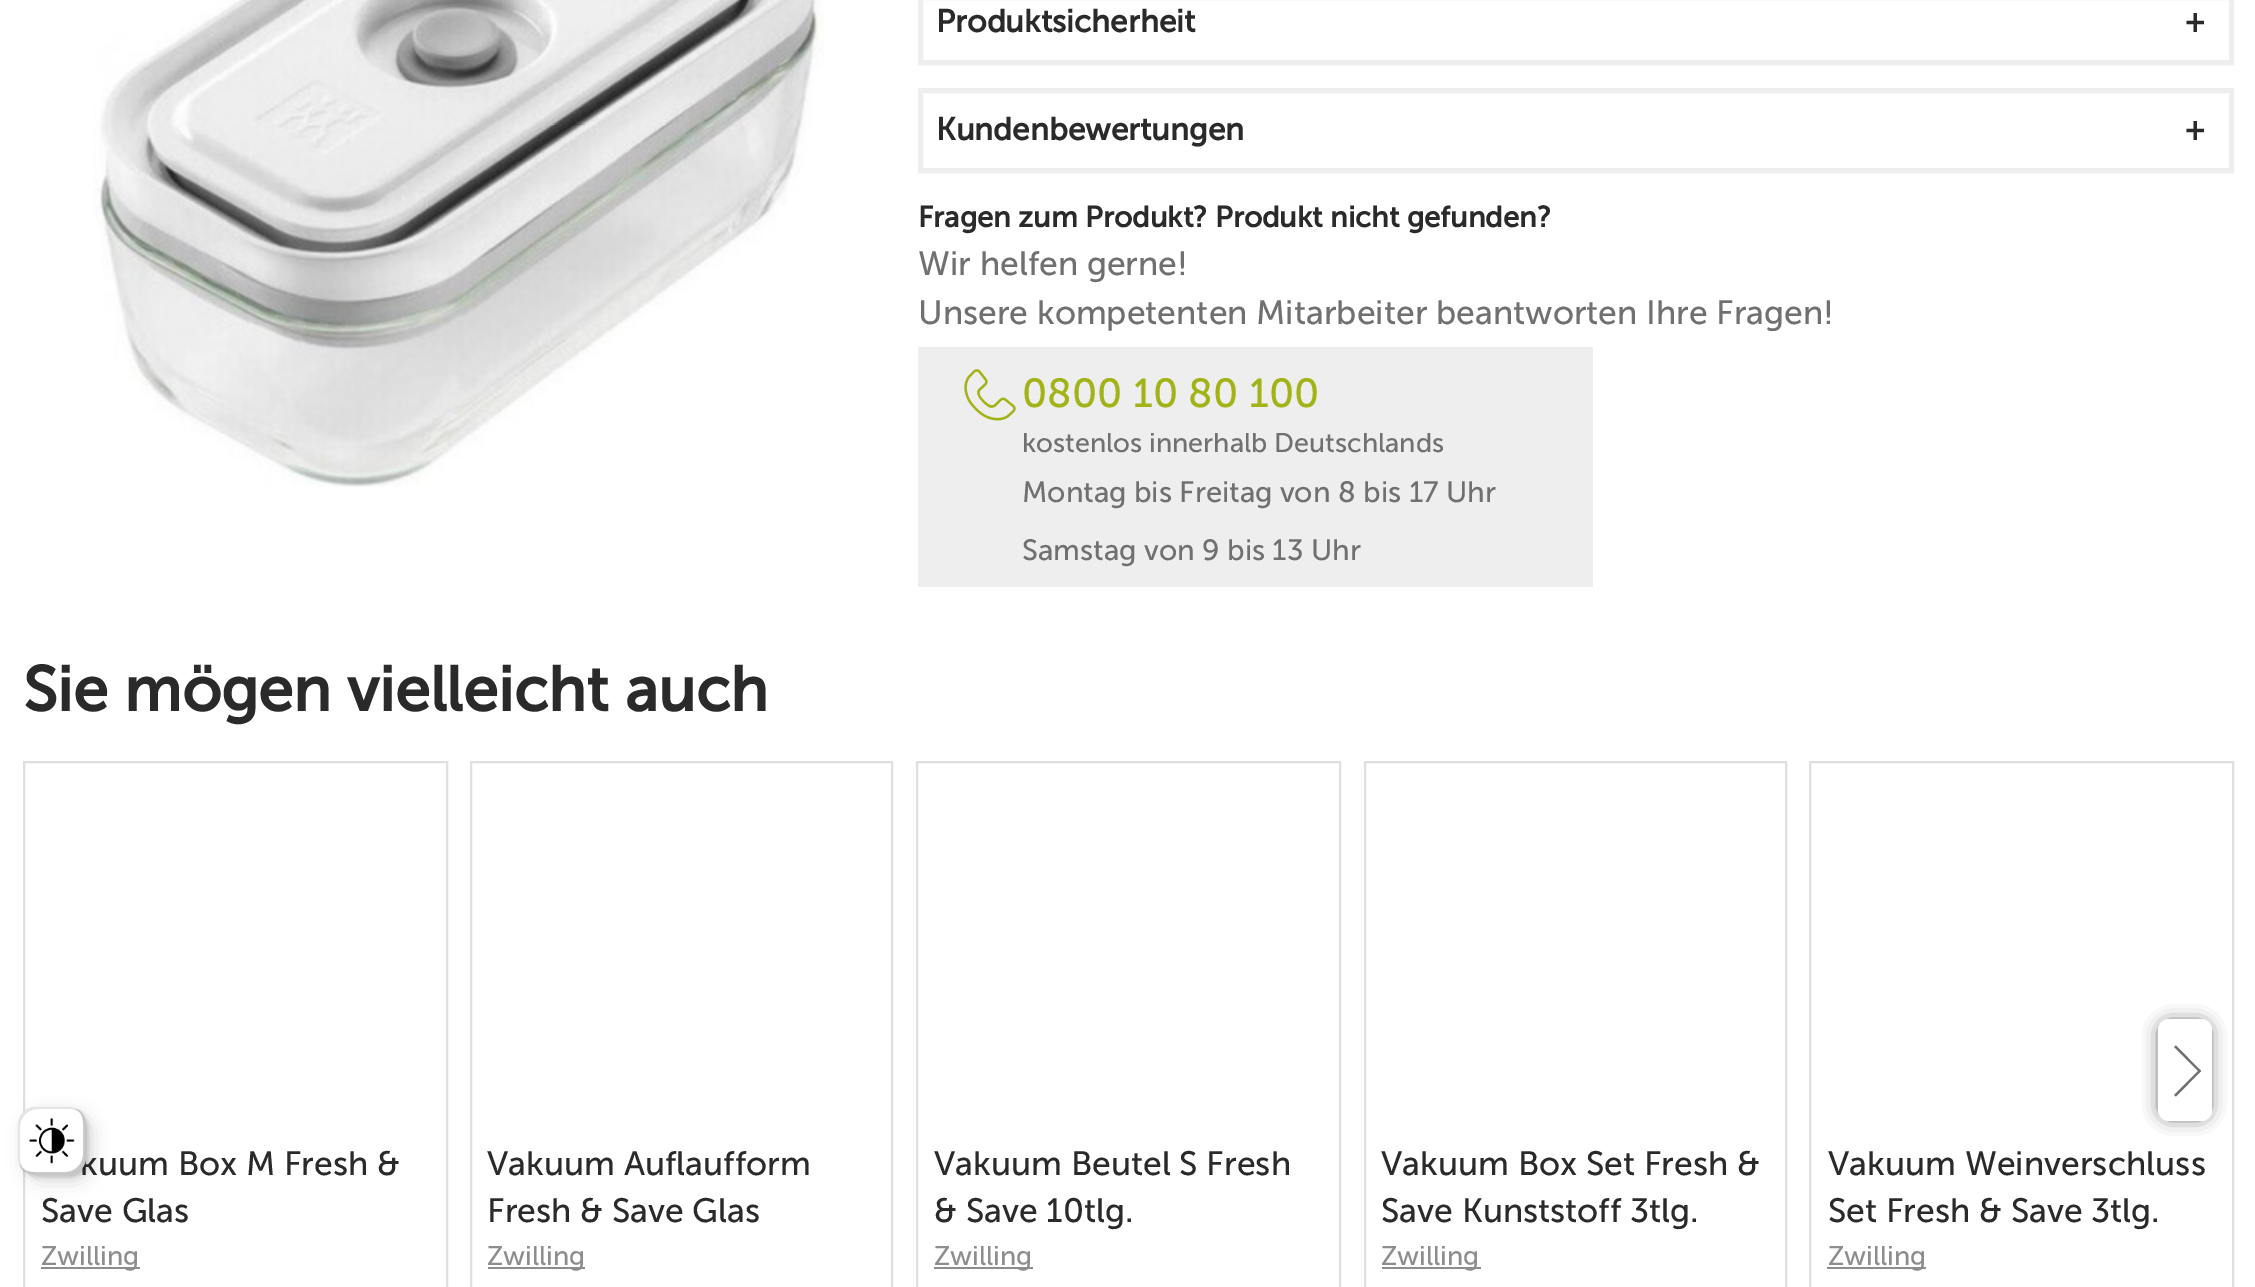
%!PS-Adobe-3.0
%%BoundingBox: 0 0 2255 1287
%%LanguageLevel: 3
%%Pages: 1
%%EndComments
%%BeginProlog
/setink { 3 { 255 div 3 1 roll } repeat setrgbcolor } def
/usefont { [ exch dup neg 0 0 3 -1 roll 0 0 ] selectfont } def
/drawtext { setink usefont moveto show } def
/fillbox { setink rectfill } def
/setalpha { dup .setfillconstantalpha .setstrokeconstantalpha } def
/rrect { 5 dict begin { /r /h /w /y /x } { exch def } forall
  x r add y moveto x w add y 2 copy h add r arct x w add y h add x 1 index r arct
  x y h add x y r arct x y 2 copy exch w add exch r arct closepath end } def
/softshadow { 12 dict begin { /a /b /q /h /w /y /x } { exch def } forall gsave /was 0 def
  9 -2 -9 { dup b mul 4 div /e exch def 1 sub .425 mul 2.718 exch exp 1 add a .99 .min exch div /now exch def
    1 1 now sub 1 was sub div sub setalpha /was now def
    w h .min e 2 mul add 0 gt { x e sub y e sub w e 2 mul add h e 2 mul add
      q e add b .6 mul add w h .min 2 div e add .min 0 .max rrect fill } if } for grestore end } def
/drawimage { 5 dict begin { /h /w /y /x /name } { exch def } forall
  gsave x y translate w h scale
  w h 8 [w 0 0 h 0 0] name (r) file false 3 colorimage grestore end } def
%%EndProlog
%%BeginSetup
<< /PageSize [2255 1287] /PageUsesTransparency true >> setpagedevice
%%EndSetup
%%Page: 1 1
0 .pushpdf14devicefilter
0 1287 translate 1 -1 scale
4 setmiterlimit
0 0 2255 1287 255 255 255 fillbox
(assets/img1.rgb) 94 0 730 487 drawimage
238 238 238 setink
5 setlinewidth
920.5 -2.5 1311 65 rectstroke
(Produktsicherheit) 936 32 /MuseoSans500-Bold 31.5 42 42 42 drawtext
(+) 2184 32 /MuseoSans500-Bold 31.5 42 42 42 drawtext
238 238 238 setink
920.5 90.5 1311 80 rectstroke
(Kundenbewertungen) 936 140 /MuseoSans500-Bold 31.5 42 42 42 drawtext
(+) 2184 140 /MuseoSans500-Bold 31.5 42 42 42 drawtext
(Fragen zum Produkt? Produkt nicht gefunden?) 918 227 /MuseoSans500-Bold 29.25 42 42 42 drawtext
(Wir helfen gerne!) 918 275 /MuseoSans500-Regular 33.75 112 112 112 drawtext
(Unsere kompetenten Mitarbeiter beantworten Ihre Fragen!) 918 324 /MuseoSans500-Regular 33.75 112 112 112 drawtext
918 347 675 240 238 238 238 fillbox
(assets/img2.rgb) 964 369 52 52 drawimage
(0800 10 80 100) 1022 407 /MuseoSans500-Regular 40.5 162 179 23 drawtext
(kostenlos innerhalb Deutschlands) 1022 452 /MuseoSans500-Regular 27 112 112 112 drawtext
(Montag bis Freitag von 8 bis 17 Uhr) 1022 502 /MuseoSans500-Regular 29.25 112 112 112 drawtext
(Samstag von 9 bis 13 Uhr) 1022 560 /MuseoSans500-Regular 29.25 112 112 112 drawtext
(Sie mögen vielleicht auch) 23 711 /MuseoSans500-Bold 63 42 42 42 drawtext
223 223 223 setink
2 setlinewidth
1810 762 423 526 rectstroke
42 42 42 setink
2162 1024 45 92 7 9 1 softshadow
255 255 255 setink
2158 1019 54 102 11 rrect fill
112 112 112 setink
2176 1045.5 moveto 2201 1071 lineto 2199.5 1072.5 lineto 2174 1047 lineto closepath fill
2199.5 1069.5 moveto 2201 1071 lineto 2176 1096.5 lineto 2174 1095 lineto closepath fill
223 223 223 setink
24 762 423 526 rectstroke
(kuum Box M Fresh &) 80 1175 /MuseoSans500-Regular 33.75 42 42 42 drawtext
(Save Glas) 41 1222 /MuseoSans500-Regular 33.75 42 42 42 drawtext
41 1267 99 2 141 141 141 fillbox
(Zwilling) 41 1265 /MuseoSans500-Regular 27 141 141 141 drawtext
223 223 223 setink
471 762 421 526 rectstroke
(Vakuum Auflaufform) 487 1175 /MuseoSans500-Regular 33.75 42 42 42 drawtext
(Fresh & Save Glas) 487 1222 /MuseoSans500-Regular 33.75 42 42 42 drawtext
488 1267 97 2 141 141 141 fillbox
(Zwilling) 487 1265 /MuseoSans500-Regular 27 141 141 141 drawtext
223 223 223 setink
917 762 423 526 rectstroke
(Vakuum Beutel S Fresh) 934 1175 /MuseoSans500-Regular 33.75 42 42 42 drawtext
(& Save 10tlg.) 934 1222 /MuseoSans500-Regular 33.75 42 42 42 drawtext
934 1267 99 2 141 141 141 fillbox
(Zwilling) 934 1265 /MuseoSans500-Regular 27 141 141 141 drawtext
223 223 223 setink
1365 762 421 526 rectstroke
(Vakuum Box Set Fresh &) 1381 1175 /MuseoSans500-Regular 33.75 42 42 42 drawtext
(Save Kunststoff 3tlg.) 1381 1222 /MuseoSans500-Regular 33.75 42 42 42 drawtext
1382 1267 99 2 141 141 141 fillbox
(Zwilling) 1381 1265 /MuseoSans500-Regular 27 141 141 141 drawtext
(Vakuum Weinverschluss) 1828 1175 /MuseoSans500-Regular 33.75 42 42 42 drawtext
(Set Fresh & Save 3tlg.) 1828 1222 /MuseoSans500-Regular 33.75 42 42 42 drawtext
1827 1267 99 2 141 141 141 fillbox
(Zwilling) 1828 1265 /MuseoSans500-Regular 27 141 141 141 drawtext
0 0 0 setink
25 1114 67 67 18 9 0.15 softshadow
20 1109 68 68 18 2 0.15 softshadow
255 255 255 setink
18 1107 68 68 18 rrect fill
0.1 setalpha
0 0 0 setink
38 1109 moveto 70 1109 lineto 74 1109 78 1111 82 1113 curveto 78 1109 73 1107 68 1107 curveto 36 1107 lineto 26 1107 18 1115 18 1125 curveto 18 1157 lineto 18 1162 20 1167 24 1171 curveto 22 1167 20 1163 20 1159 curveto 20 1127 lineto 20 1117 28 1109 38 1109 curveto closepath fill
0.2 setalpha
20 1166 moveto 23 1171 29 1175 36 1175 curveto 68 1175 lineto 78 1175 86 1167 86 1157 curveto 86 1125 lineto 86 1118 82 1112 77 1109 curveto 81 1112 83 1117 83 1123 curveto 83 1154 lineto 83 1164 75 1172 65 1172 curveto 34 1172 lineto 28 1172 23 1170 20 1166 curveto closepath fill
50 50 50 setink
20 1164 moveto 22 1171 29 1175 36 1175 curveto 68 1175 lineto 78 1175 86 1167 86 1157 curveto 86 1125 lineto 86 1118 82 1111 75 1109 curveto 80 1112 84 1117 84 1124 curveto 84 1155 lineto 84 1165 76 1173 66 1173 curveto 35 1173 lineto 28 1173 23 1169 20 1164 curveto closepath fill
0.3 setalpha
255 255 255 setink
20 1164 moveto 22 1171 29 1175 36 1175 curveto 68 1175 lineto 78 1175 86 1167 86 1157 curveto 86 1125 lineto 86 1118 82 1111 75 1109 curveto 80 1112 84 1117 84 1124 curveto 84 1155 lineto 84 1165 76 1173 66 1173 curveto 35 1173 lineto 28 1173 23 1169 20 1164 curveto closepath fill
1 setalpha
(assets/img3.rgb) 29 1118 46 46 drawimage
.poppdf14devicefilter showpage
%%EOF
